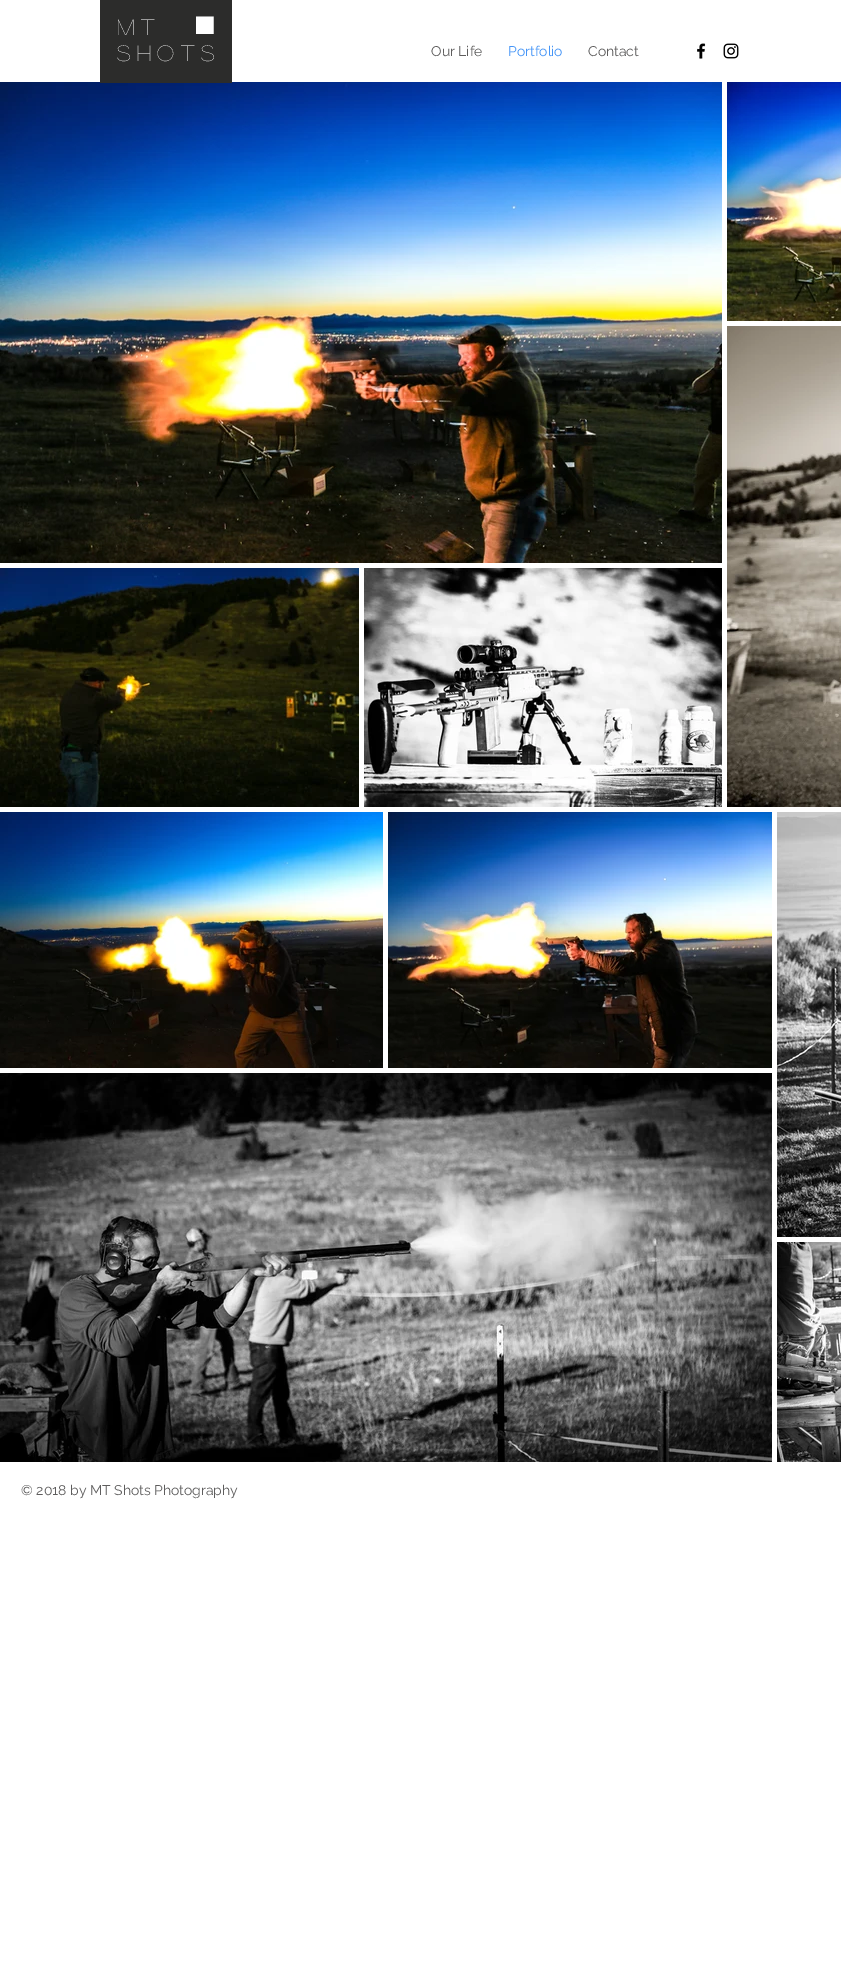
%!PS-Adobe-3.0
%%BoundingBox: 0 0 841 1962
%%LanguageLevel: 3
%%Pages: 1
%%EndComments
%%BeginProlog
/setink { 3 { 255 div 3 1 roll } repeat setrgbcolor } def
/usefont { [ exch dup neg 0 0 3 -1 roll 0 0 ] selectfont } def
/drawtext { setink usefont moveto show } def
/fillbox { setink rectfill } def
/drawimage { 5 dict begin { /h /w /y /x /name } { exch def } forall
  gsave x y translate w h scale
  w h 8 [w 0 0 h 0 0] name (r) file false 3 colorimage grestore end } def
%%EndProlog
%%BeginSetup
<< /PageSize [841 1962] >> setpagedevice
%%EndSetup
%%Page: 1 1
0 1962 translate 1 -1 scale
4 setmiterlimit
0 0 841 1962 255 255 255 fillbox
(assets/img3.rgb) 0 82 722 481 drawimage
100 0 132 83 44 44 43 fillbox
196 17 17 17 255 255 255 fillbox
196 17 moveto 213 17 lineto 213 34 lineto 213 17 lineto closepath stroke
/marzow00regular-Regular 22 usefont
117 35 moveto 6.5 0 (mt) ashow
117 61 moveto 6.5 0 (shots) ashow
(Our Life) 431 56 /Raleway-Regular 14 94 93 93 drawtext
(Portfolio) 508 56 /Raleway-Regular 14 69 149 247 drawtext
(Contact) 588 56 /Raleway-Regular 14 94 93 93 drawtext
(assets/img1.rgb) 697 43 9 16 drawimage
(assets/img2.rgb) 723 43 16 16 drawimage
(assets/img4.rgb) 727 82 114 239 drawimage
(assets/img5.rgb) 0 568 359 239 drawimage
(assets/img6.rgb) 364 568 358 239 drawimage
(assets/img7.rgb) 727 326 114 481 drawimage
(assets/img8.rgb) 0 812 383 256 drawimage
(assets/img9.rgb) 388 812 384 256 drawimage
(assets/img10.rgb) 777 812 64 425 drawimage
(assets/img11.rgb) 0 1073 772 389 drawimage
(assets/img12.rgb) 777 1242 64 220 drawimage
(© 2018 by MT Shots Photography) 21 1495 /Raleway-Regular 14 94 93 93 drawtext
showpage
%%EOF
